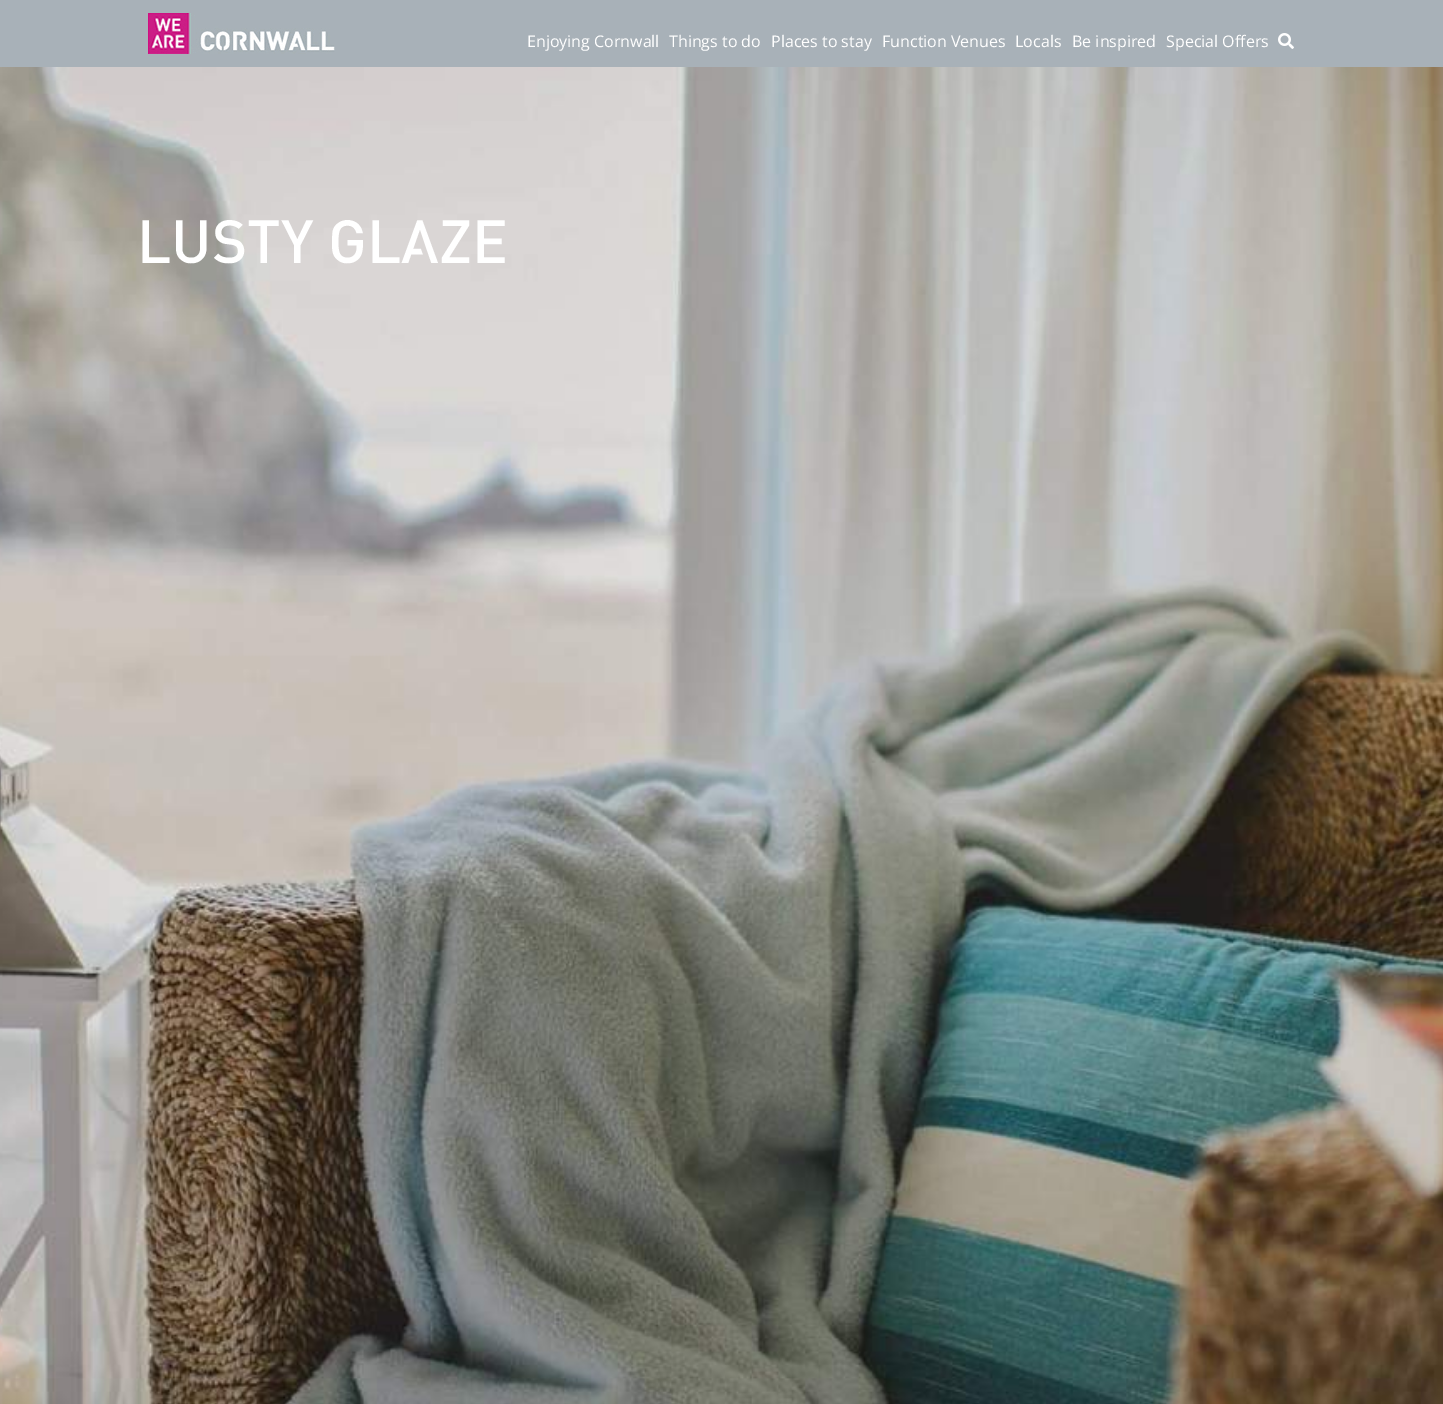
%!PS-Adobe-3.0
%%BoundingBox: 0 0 1443 1404
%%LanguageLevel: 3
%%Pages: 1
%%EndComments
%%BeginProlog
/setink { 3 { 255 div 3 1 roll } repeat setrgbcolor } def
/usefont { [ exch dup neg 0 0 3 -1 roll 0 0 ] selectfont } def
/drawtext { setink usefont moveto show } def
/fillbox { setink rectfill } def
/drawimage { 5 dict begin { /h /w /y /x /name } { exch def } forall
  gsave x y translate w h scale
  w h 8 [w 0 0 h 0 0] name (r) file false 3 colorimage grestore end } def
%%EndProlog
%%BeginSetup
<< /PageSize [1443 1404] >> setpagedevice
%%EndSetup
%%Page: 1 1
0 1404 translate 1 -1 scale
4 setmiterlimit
0 0 1443 1404 255 255 255 fillbox
0 0 1443 67 168 177 184 fillbox
(assets/img1.rgb) 148 13 187 41 drawimage
(Enjoying Cornwall) 527 47 /OpenSans-Regular 16 255 255 255 drawtext
(Things to do) 669 47 /OpenSans-Regular 16 255 255 255 drawtext
(Places to stay) 771 47 /OpenSans-Regular 16 255 255 255 drawtext
(Function Venues) 882 47 /OpenSans-Regular 16 255 255 255 drawtext
(Locals) 1015 47 /OpenSans-Regular 16 255 255 255 drawtext
(Be inspired) 1072 47 /OpenSans-Regular 16 255 255 255 drawtext
(Special Offers) 1166 47 /OpenSans-Regular 16 255 255 255 drawtext
(assets/img2.rgb) 1278 33 16 16 drawimage
(assets/img3.rgb) 0 67 1443 1337 drawimage
(LUSTY GLAZE) 137 263 /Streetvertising-Medium 60 255 255 255 drawtext
showpage
%%EOF
